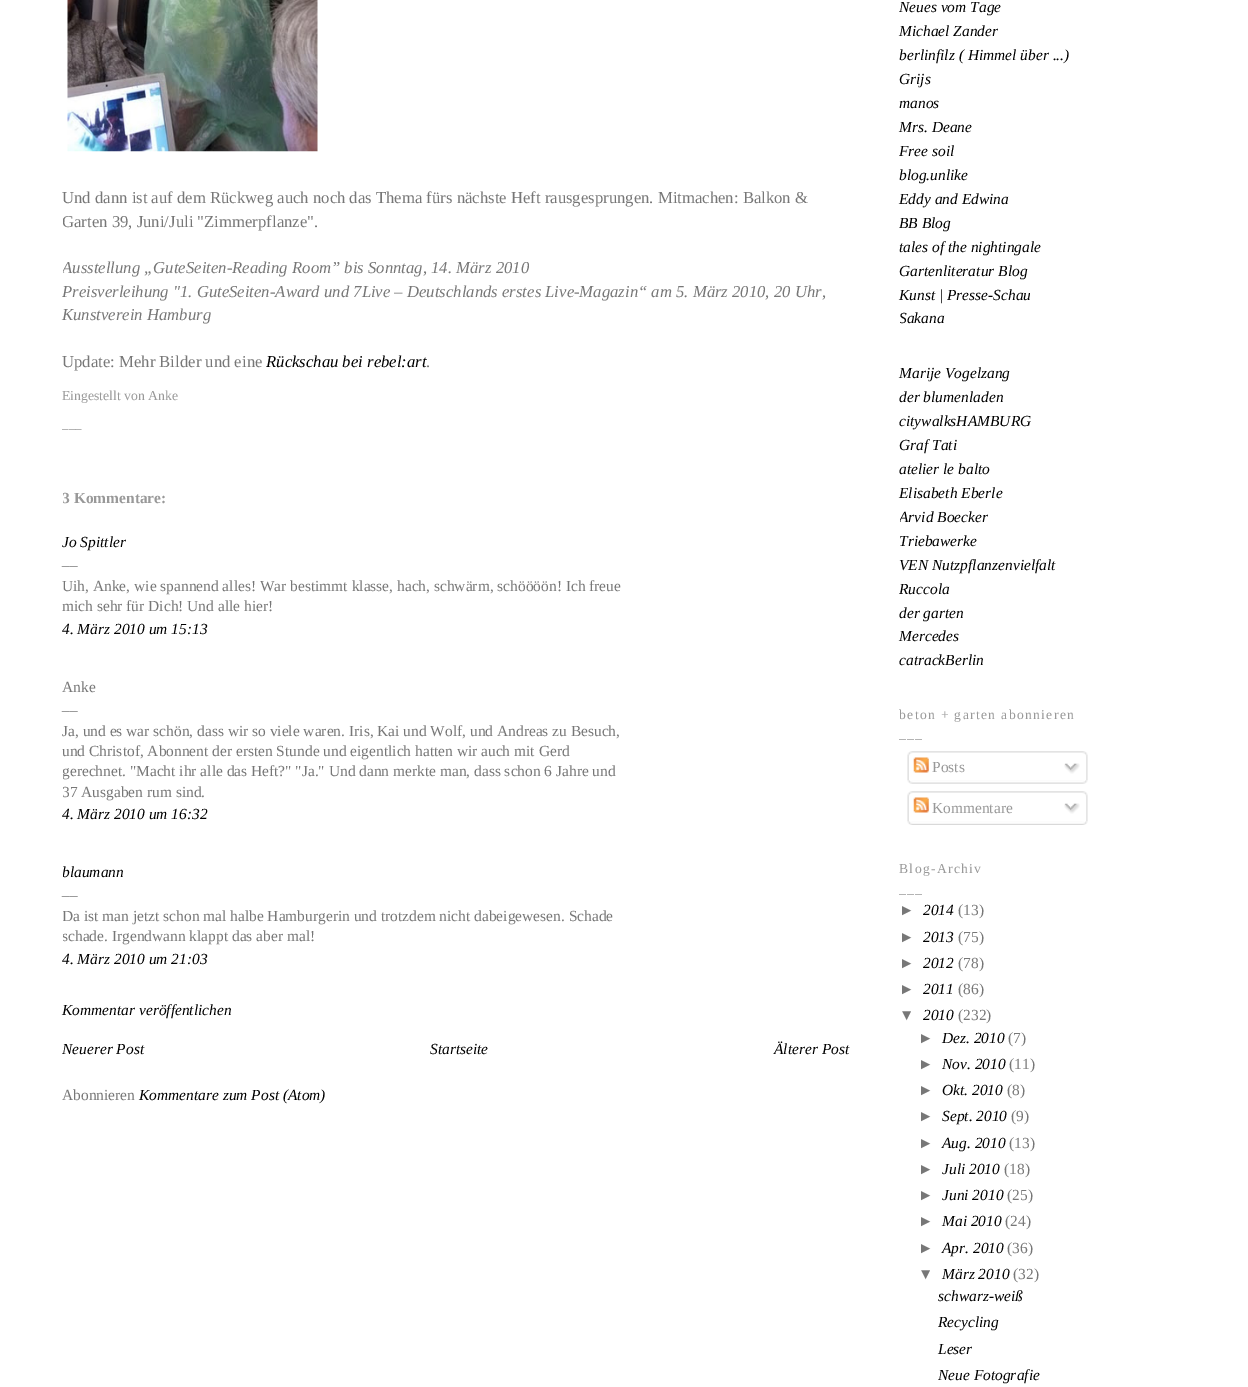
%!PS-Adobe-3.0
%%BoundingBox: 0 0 1248 1387
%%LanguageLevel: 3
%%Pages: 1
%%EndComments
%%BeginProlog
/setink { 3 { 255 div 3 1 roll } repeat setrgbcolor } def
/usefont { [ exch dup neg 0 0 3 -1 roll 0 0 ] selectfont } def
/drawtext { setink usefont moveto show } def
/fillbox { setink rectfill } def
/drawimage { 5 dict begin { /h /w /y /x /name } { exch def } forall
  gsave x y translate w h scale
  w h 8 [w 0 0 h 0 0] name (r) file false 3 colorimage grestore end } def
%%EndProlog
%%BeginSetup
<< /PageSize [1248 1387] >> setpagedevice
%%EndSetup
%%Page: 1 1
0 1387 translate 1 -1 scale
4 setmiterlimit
0 0 1248 1387 255 255 255 fillbox
(assets/img1.rgb) 67 0 251 152 drawimage
(Und dann ist auf dem Rückweg auch noch das Thema fürs nächste Heft rausgesprungen. Mitmachen: Balkon &) 62 203 /LiberationSerif-Regular 16.7 119 119 119 drawtext
gsave
63 0 812 1143 rectclip
(Garten 39, Juni/Juli "Zimmerpflanze".) 62 227 /LiberationSerif-Regular 16.7 119 119 119 drawtext
(Ausstellung „GuteSeiten-Reading Room” bis Sonntag, 14. März 2010) 62 273 /LiberationSerif-Italic 16.7 119 119 119 drawtext
grestore
(Preisverleihung "1. GuteSeiten-Award und 7Live – Deutschlands erstes Live-Magazin“ am 5. März 2010, 20 Uhr,) 62 297 /LiberationSerif-Italic 16.7 119 119 119 drawtext
(Kunstverein Hamburg) 62 320 /LiberationSerif-Italic 16.7 119 119 119 drawtext
(Update: Mehr Bilder und eine) 62 367 /LiberationSerif-Regular 16.7 119 119 119 drawtext
(Rückschau bei rebel:art) 266 367 /LiberationSerif-Italic 16.7 0 0 0 drawtext
(.) 426 367 /LiberationSerif-Regular 16.7 119 119 119 drawtext
(Eingestellt von Anke) 62 400 /LiberationSerif-Regular 13.75 153 153 153 drawtext
(___) 62 428 /LiberationSerif-Regular 13 153 153 153 drawtext
gsave
63 0 812 1143 rectclip
(3 Kommentare:) 62 503 /LiberationSerif-Bold 15.45 153 153 153 drawtext
grestore
(Jo Spittler) 62 547 /LiberationSerif-Italic 15.45 0 0 0 drawtext
(__) 62 565 /LiberationSerif-Regular 15.45 119 119 119 drawtext
(Uih, Anke, wie spannend alles! War bestimmt klasse, hach, schwärm, schöööön! Ich freue) 62 591 /LiberationSerif-Regular 15.45 119 119 119 drawtext
(mich sehr für Dich! Und alle hier!) 62 611 /LiberationSerif-Regular 15.45 119 119 119 drawtext
(4. März 2010 um 15:13) 62 634 /LiberationSerif-Italic 15.45 0 0 0 drawtext
(Anke) 62 692 /LiberationSerif-Regular 15.45 119 119 119 drawtext
(__) 62 710 /LiberationSerif-Regular 15.45 119 119 119 drawtext
(Ja, und es war schön, dass wir so viele waren. Iris, Kai und Wolf, und Andreas zu Besuch,) 62 736 /LiberationSerif-Regular 15.45 119 119 119 drawtext
(und Christof, Abonnent der ersten Stunde und eigentlich hatten wir auch mit Gerd) 62 756 /LiberationSerif-Regular 15.45 119 119 119 drawtext
gsave
63 0 812 1143 rectclip
(gerechnet. "Macht ihr alle das Heft?" "Ja." Und dann merkte man, dass schon 6 Jahre und) 62 776 /LiberationSerif-Regular 15.45 119 119 119 drawtext
(37 Ausgaben rum sind.) 62 797 /LiberationSerif-Regular 15.45 119 119 119 drawtext
grestore
(4. März 2010 um 16:32) 62 819 /LiberationSerif-Italic 15.45 0 0 0 drawtext
gsave
63 0 812 1143 rectclip
(blaumann) 62 877 /LiberationSerif-Italic 15.45 0 0 0 drawtext
grestore
(__) 62 895 /LiberationSerif-Regular 15.45 119 119 119 drawtext
gsave
63 0 812 1143 rectclip
(Da ist man jetzt schon mal halbe Hamburgerin und trotzdem nicht dabeigewesen. Schade) 62 921 /LiberationSerif-Regular 15.45 119 119 119 drawtext
(schade. Irgendwann klappt das aber mal!) 62 941 /LiberationSerif-Regular 15.45 119 119 119 drawtext
grestore
(4. März 2010 um 21:03) 62 964 /LiberationSerif-Italic 15.45 0 0 0 drawtext
(Kommentar veröffentlichen) 62 1015 /LiberationSerif-Italic 15.45 0 0 0 drawtext
(Neuerer Post) 62 1054 /LiberationSerif-Italic 15.45 0 0 0 drawtext
(Startseite) 430 1054 /LiberationSerif-Italic 15.45 0 0 0 drawtext
(Älterer Post) 774 1054 /LiberationSerif-Italic 15.45 0 0 0 drawtext
(Abonnieren) 62 1100 /LiberationSerif-Regular 15.45 119 119 119 drawtext
(Kommentare zum Post \(Atom\)) 139 1100 /LiberationSerif-Italic 15.45 0 0 0 drawtext
(Neues vom Tage) 899 12 /LiberationSerif-Italic 15.45 0 0 0 drawtext
(Michael Zander) 899 36 /LiberationSerif-Italic 15.45 0 0 0 drawtext
(berlinfilz \( Himmel über ...\)) 899 60 /LiberationSerif-Italic 15.45 0 0 0 drawtext
(Grijs) 899 84 /LiberationSerif-Italic 15.45 0 0 0 drawtext
(manos) 899 108 /LiberationSerif-Italic 15.45 0 0 0 drawtext
(Mrs. Deane) 899 132 /LiberationSerif-Italic 15.45 0 0 0 drawtext
(Free soil) 899 156 /LiberationSerif-Italic 15.45 0 0 0 drawtext
(blog.unlike) 899 180 /LiberationSerif-Italic 15.45 0 0 0 drawtext
(Eddy and Edwina) 899 204 /LiberationSerif-Italic 15.45 0 0 0 drawtext
(BB Blog) 899 228 /LiberationSerif-Italic 15.45 0 0 0 drawtext
(tales of the nightingale) 899 252 /LiberationSerif-Italic 15.45 0 0 0 drawtext
(Gartenliteratur Blog) 899 276 /LiberationSerif-Italic 15.45 0 0 0 drawtext
(Kunst | Presse-Schau) 899 300 /LiberationSerif-Italic 15.45 0 0 0 drawtext
gsave
900 0 288 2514 rectclip
(Sakana) 899 323 /LiberationSerif-Italic 15.45 0 0 0 drawtext
grestore
(Marije Vogelzang) 899 378 /LiberationSerif-Italic 15.45 0 0 0 drawtext
(der blumenladen) 899 402 /LiberationSerif-Italic 15.45 0 0 0 drawtext
(citywalksHAMBURG) 899 426 /LiberationSerif-Italic 15.45 0 0 0 drawtext
(Graf Tati) 899 450 /LiberationSerif-Italic 15.45 0 0 0 drawtext
(atelier le balto) 899 474 /LiberationSerif-Italic 15.45 0 0 0 drawtext
(Elisabeth Eberle) 899 498 /LiberationSerif-Italic 15.45 0 0 0 drawtext
gsave
900 0 288 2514 rectclip
(Arvid Boecker) 899 522 /LiberationSerif-Italic 15.45 0 0 0 drawtext
grestore
(Triebawerke) 899 546 /LiberationSerif-Italic 15.45 0 0 0 drawtext
(VEN Nutzpflanzenvielfalt) 899 570 /LiberationSerif-Italic 15.45 0 0 0 drawtext
(Ruccola) 899 594 /LiberationSerif-Italic 15.45 0 0 0 drawtext
(der garten) 899 618 /LiberationSerif-Italic 15.45 0 0 0 drawtext
(Mercedes) 899 641 /LiberationSerif-Italic 15.45 0 0 0 drawtext
(catrackBerlin) 899 665 /LiberationSerif-Italic 15.45 0 0 0 drawtext
/LiberationSerif-Regular 13.6 usefont
153 153 153 setink
899 719 moveto 1.35 0 (beton + garten abonnieren) ashow
899 738 moveto 1.35 0 (___) ashow
(assets/img2.rgb) 907 751 181 29 drawimage
(assets/img3.rgb) 913 757 16 16 drawimage
(Posts) 932 772 /LiberationSerif-Regular 15.45 153 153 153 drawtext
(assets/img4.rgb) 1064 763 16 11 drawimage
(assets/img5.rgb) 907 780 181 4 drawimage
(assets/img6.rgb) 907 791 181 31 drawimage
(assets/img3.rgb) 913 797 16 16 drawimage
(Kommentare) 932 813 /LiberationSerif-Regular 15.45 153 153 153 drawtext
(assets/img7.rgb) 1064 803 16 11 drawimage
(assets/img8.rgb) 907 821 181 4 drawimage
/LiberationSerif-Regular 13.6 usefont
899 873 moveto 1.35 0 (Blog-Archiv) ashow
899 893 moveto 1.35 0 (___) ashow
(►) 899 915 /LiberationSans-Italic 15.45 119 119 119 drawtext
(2014) 923 915 /LiberationSerif-Italic 15.45 0 0 0 drawtext
(\(13\)) 958 915 /LiberationSerif-Regular 15.45 119 119 119 drawtext
(►) 899 942 /LiberationSans-Italic 15.45 119 119 119 drawtext
(2013) 923 942 /LiberationSerif-Italic 15.45 0 0 0 drawtext
(\(75\)) 958 942 /LiberationSerif-Regular 15.45 119 119 119 drawtext
(►) 899 968 /LiberationSans-Italic 15.45 119 119 119 drawtext
(2012) 923 968 /LiberationSerif-Italic 15.45 0 0 0 drawtext
(\(78\)) 958 968 /LiberationSerif-Regular 15.45 119 119 119 drawtext
(►) 899 994 /LiberationSans-Italic 15.45 119 119 119 drawtext
(2011) 923 994 /LiberationSerif-Italic 15.45 0 0 0 drawtext
(\(86\)) 958 994 /LiberationSerif-Regular 15.45 119 119 119 drawtext
(▼) 899 1020 /LiberationSans-Italic 15.45 119 119 119 drawtext
(2010) 923 1020 /LiberationSerif-Italic 15.45 0 0 0 drawtext
(\(232\)) 958 1020 /LiberationSerif-Regular 15.45 119 119 119 drawtext
(►) 918 1043 /LiberationSans-Italic 15.45 119 119 119 drawtext
(Dez. 2010) 942 1043 /LiberationSerif-Italic 15.45 0 0 0 drawtext
(\(7\)) 1008 1043 /LiberationSerif-Regular 15.45 119 119 119 drawtext
(►) 918 1069 /LiberationSans-Italic 15.45 119 119 119 drawtext
(Nov. 2010) 942 1069 /LiberationSerif-Italic 15.45 0 0 0 drawtext
(\(11\)) 1009 1069 /LiberationSerif-Regular 15.45 119 119 119 drawtext
(►) 918 1095 /LiberationSans-Italic 15.45 119 119 119 drawtext
(Okt. 2010) 942 1095 /LiberationSerif-Italic 15.45 0 0 0 drawtext
(\(8\)) 1007 1095 /LiberationSerif-Regular 15.45 119 119 119 drawtext
(►) 918 1121 /LiberationSans-Italic 15.45 119 119 119 drawtext
(Sept. 2010) 942 1121 /LiberationSerif-Italic 15.45 0 0 0 drawtext
(\(9\)) 1011 1121 /LiberationSerif-Regular 15.45 119 119 119 drawtext
(►) 918 1148 /LiberationSans-Italic 15.45 119 119 119 drawtext
(Aug. 2010) 942 1148 /LiberationSerif-Italic 15.45 0 0 0 drawtext
(\(13\)) 1009 1148 /LiberationSerif-Regular 15.45 119 119 119 drawtext
(►) 918 1174 /LiberationSans-Italic 15.45 119 119 119 drawtext
(Juli 2010) 942 1174 /LiberationSerif-Italic 15.45 0 0 0 drawtext
(\(18\)) 1004 1174 /LiberationSerif-Regular 15.45 119 119 119 drawtext
(►) 918 1200 /LiberationSans-Italic 15.45 119 119 119 drawtext
(Juni 2010) 942 1200 /LiberationSerif-Italic 15.45 0 0 0 drawtext
(\(25\)) 1007 1200 /LiberationSerif-Regular 15.45 119 119 119 drawtext
(►) 918 1226 /LiberationSans-Italic 15.45 119 119 119 drawtext
(Mai 2010) 942 1226 /LiberationSerif-Italic 15.45 0 0 0 drawtext
(\(24\)) 1005 1226 /LiberationSerif-Regular 15.45 119 119 119 drawtext
(►) 918 1253 /LiberationSans-Italic 15.45 119 119 119 drawtext
(Apr. 2010) 942 1253 /LiberationSerif-Italic 15.45 0 0 0 drawtext
(\(36\)) 1007 1253 /LiberationSerif-Regular 15.45 119 119 119 drawtext
(▼) 918 1279 /LiberationSans-Italic 15.45 119 119 119 drawtext
(März 2010) 942 1279 /LiberationSerif-Italic 15.45 0 0 0 drawtext
(\(32\)) 1013 1279 /LiberationSerif-Regular 15.45 119 119 119 drawtext
(schwarz-weiß) 938 1301 /LiberationSerif-Italic 15.45 0 0 0 drawtext
(Recycling) 938 1327 /LiberationSerif-Italic 15.45 0 0 0 drawtext
(Leser) 938 1354 /LiberationSerif-Italic 15.45 0 0 0 drawtext
(Neue Fotografie) 938 1380 /LiberationSerif-Italic 15.45 0 0 0 drawtext
showpage
%%EOF
